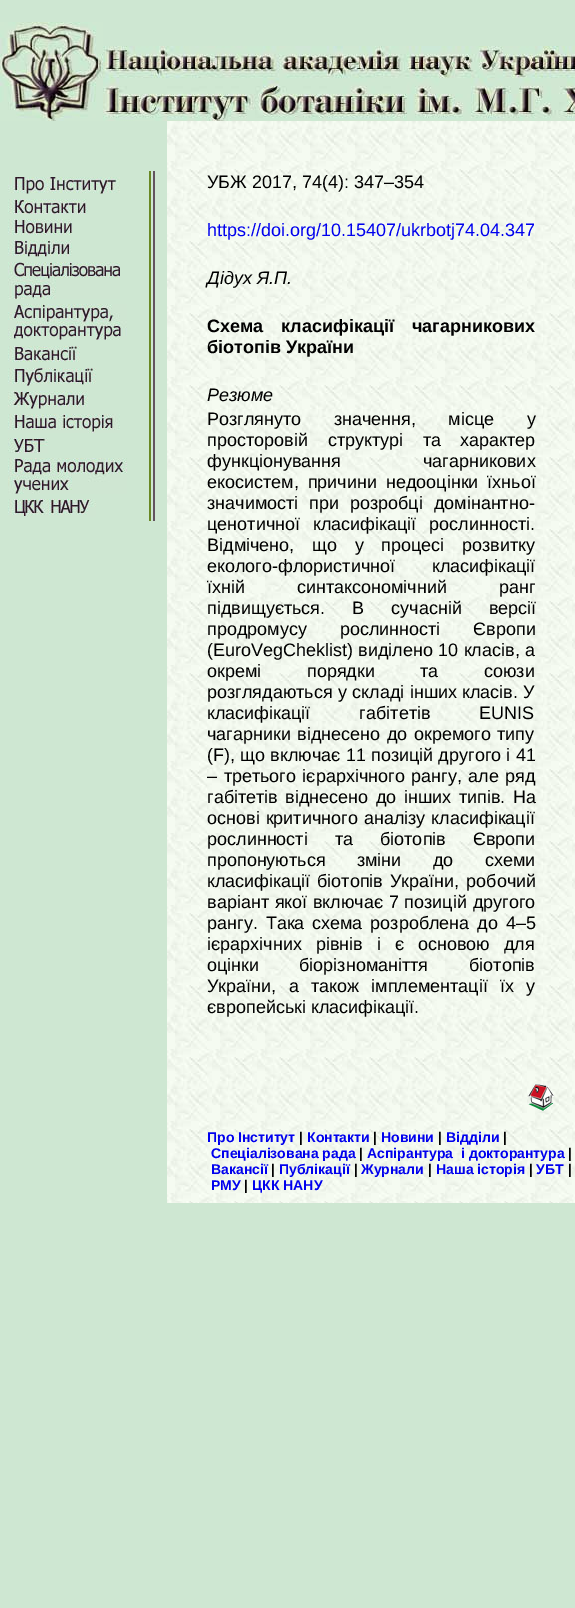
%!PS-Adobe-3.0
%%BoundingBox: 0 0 575 1608
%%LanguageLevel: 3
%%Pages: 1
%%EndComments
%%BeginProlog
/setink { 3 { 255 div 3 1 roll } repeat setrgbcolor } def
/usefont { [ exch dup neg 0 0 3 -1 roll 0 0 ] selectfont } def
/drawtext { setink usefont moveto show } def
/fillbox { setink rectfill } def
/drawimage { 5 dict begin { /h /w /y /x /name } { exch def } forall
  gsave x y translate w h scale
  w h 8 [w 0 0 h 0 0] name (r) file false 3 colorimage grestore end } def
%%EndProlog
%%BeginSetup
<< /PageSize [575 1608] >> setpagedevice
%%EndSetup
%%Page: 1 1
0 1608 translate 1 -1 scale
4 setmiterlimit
0 0 575 1608 206 231 210 fillbox
(assets/img1.rgb) 0 22 103 99 drawimage
(assets/img2.rgb) 103 46 472 75 drawimage
(assets/img3.rgb) 8 177 112 17 drawimage
(assets/img4.rgb) 8 199 80 15 drawimage
(assets/img5.rgb) 8 219 64 16 drawimage
(assets/img6.rgb) 8 240 64 17 drawimage
(assets/img7.rgb) 8 262 112 37 drawimage
(assets/img8.rgb) 8 304 119 36 drawimage
(assets/img9.rgb) 8 346 72 16 drawimage
(assets/img10.rgb) 8 368 88 18 drawimage
(assets/img11.rgb) 8 391 80 18 drawimage
(assets/img12.rgb) 8 414 112 19 drawimage
(assets/img13.rgb) 8 438 40 15 drawimage
(assets/img14.rgb) 8 458 119 36 drawimage
(assets/img15.rgb) 8 499 88 18 drawimage
(assets/img16.rgb) 149 171 6 350 drawimage
(assets/img17.rgb) 167 121 408 1082 drawimage
(УБЖ 2017, 74\(4\): 347–354) 207 188 /LiberationSans-Regular 18 0 0 0 drawtext
(https://doi.org/10.15407/ukrbotj74.04.347) 207 236 /LiberationSans-Regular 18 0 0 238 drawtext
(Дідух Я.П.) 207 284 /LiberationSans-Italic 18 0 0 0 drawtext
/LiberationSans-Bold 18 usefont
207 332 moveto 13 0 32 (Схема класифікації чагарникових) widthshow
(біотопів України) 207 353 /LiberationSans-Bold 18 0 0 0 drawtext
(Резюме) 207 401 /LiberationSans-Italic 18 0 0 0 drawtext
/LiberationSans-Regular 18 usefont
207 425 moveto 27.5 0 32 (Розглянуто значення, місце у) widthshow
207 446 moveto 15 0 32 (просторовій структурі та) widthshow
(характер) 460 446 /LiberationSans-Regular 18 0 0 0 drawtext
207 467 moveto 77 0 32 (функціонування чагарникових) widthshow
207 488 moveto 4 0 32 (екосистем, причини недооцінки їхньої) widthshow
(значимості) 207 509 /LiberationSans-Regular 18 0 0 0 drawtext
309 509 moveto 6 0 32 (при розробці домінантно-) widthshow
207 530 moveto 8 0 32 (ценотичної класифікації рослинності.) widthshow
207 551 moveto 13 0 32 (Відмічено, що у) widthshow
381 551 moveto 13 0 32 (процесі розвитку) widthshow
207 572 moveto 32 0 32 (еколого-флористичної класифікації) widthshow
207 593 moveto 47 0 32 (їхній синтаксономічний ранг) widthshow
207 614 moveto 22 0 32 (підвищується. В сучасній версії) widthshow
207 635 moveto 28 0 32 (продромусу рослинності Європи) widthshow
(\(EuroVegCheklist\)) 207 656 /LiberationSans-Regular 18 0 0 0 drawtext
358 656 moveto 0.5 0 32 (виділено 10 класів, а) widthshow
207 677 moveto 40.5 0 32 (окремі порядки та союзи) widthshow
207 698 moveto 0.5 0 32 (розглядаються у складі інших) widthshow
(класів. У) 462 698 /LiberationSans-Regular 18 0 0 0 drawtext
207 719 moveto 44 0 32 (класифікації габітетів EUNIS) widthshow
207 740 moveto 1.5 0 32 (чагарники віднесено до окремого типу) widthshow
207 761 moveto 0.25 0 32 (\(F\), що включає 11 позицій другого і 41) widthshow
207 782 moveto 1.5 0 32 (– третього ієрархічного рангу, але ряд) widthshow
207 803 moveto 2.5 0 32 (габітетів віднесено до інших типів. На) widthshow
207 824 moveto 1 0 32 (основі критичного аналізу класифікації) widthshow
207 845 moveto 22 0 32 (рослинності та біотопів Європи) widthshow
207 866 moveto 26.5 0 32 (пропонуються зміни до схеми) widthshow
(класифікації) 207 887 /LiberationSans-Regular 18 0 0 0 drawtext
317 887 moveto 2 0 32 (біотопів України, робочий) widthshow
207 908 moveto 0.75 0 32 (варіант якої включає 7 позицій другого) widthshow
207 929 moveto 3 0 32 (рангу. Така) widthshow
312 929 moveto 3 0 32 (схема розроблена до 4–5) widthshow
207 950 moveto 9 0 32 (ієрархічних рівнів і є основою для) widthshow
(оцінки) 207 971 /LiberationSans-Regular 18 0 0 0 drawtext
299 971 moveto 36 0 32 (біорізноманіття біотопів) widthshow
207 992 moveto 7.25 0 32 (України, а також імплементації їх у) widthshow
(європейські класифікації.) 207 1013 /LiberationSans-Regular 18 0 0 0 drawtext
(assets/img18.rgb) 528 1084 26 27 drawimage
(Про Інститут) 207 1142 /LiberationSans-Bold 14 0 0 238 drawtext
(|) 299 1142 /LiberationSans-Bold 14 0 0 0 drawtext
(Контакти) 307 1142 /LiberationSans-Bold 14 0 0 238 drawtext
(|) 373 1142 /LiberationSans-Bold 14 0 0 0 drawtext
(Новини) 381 1142 /LiberationSans-Bold 14 0 0 238 drawtext
(|) 438 1142 /LiberationSans-Bold 14 0 0 0 drawtext
(Відділи) 446 1142 /LiberationSans-Bold 14 0 0 238 drawtext
(|) 503 1142 /LiberationSans-Bold 14 0 0 0 drawtext
(Спеціалізована рада) 211 1158 /LiberationSans-Bold 14 0 0 238 drawtext
(|) 359 1158 /LiberationSans-Bold 14 0 0 0 drawtext
(Аспірантура) 367 1158 /LiberationSans-Bold 14 0 0 238 drawtext
(і докторантура) 461 1158 /LiberationSans-Bold 14 0 0 238 drawtext
(|) 568 1158 /LiberationSans-Bold 14 0 0 0 drawtext
(Вакансії) 211 1174 /LiberationSans-Bold 14 0 0 238 drawtext
(|) 271 1174 /LiberationSans-Bold 14 0 0 0 drawtext
(Публікації) 279 1174 /LiberationSans-Bold 14 0 0 238 drawtext
(|) 354 1174 /LiberationSans-Bold 14 0 0 0 drawtext
(Журнали) 361 1174 /LiberationSans-Bold 14 0 0 238 drawtext
(|) 428 1174 /LiberationSans-Bold 14 0 0 0 drawtext
(Наша історія) 436 1174 /LiberationSans-Bold 14 0 0 238 drawtext
(|) 529 1174 /LiberationSans-Bold 14 0 0 0 drawtext
(УБТ) 536 1174 /LiberationSans-Bold 14 0 0 238 drawtext
(|) 568 1174 /LiberationSans-Bold 14 0 0 0 drawtext
(РМУ) 211 1190 /LiberationSans-Bold 14 0 0 238 drawtext
(|) 244 1190 /LiberationSans-Bold 14 0 0 0 drawtext
(ЦКК НАНУ) 252 1190 /LiberationSans-Bold 14 0 0 238 drawtext
showpage
%%EOF
